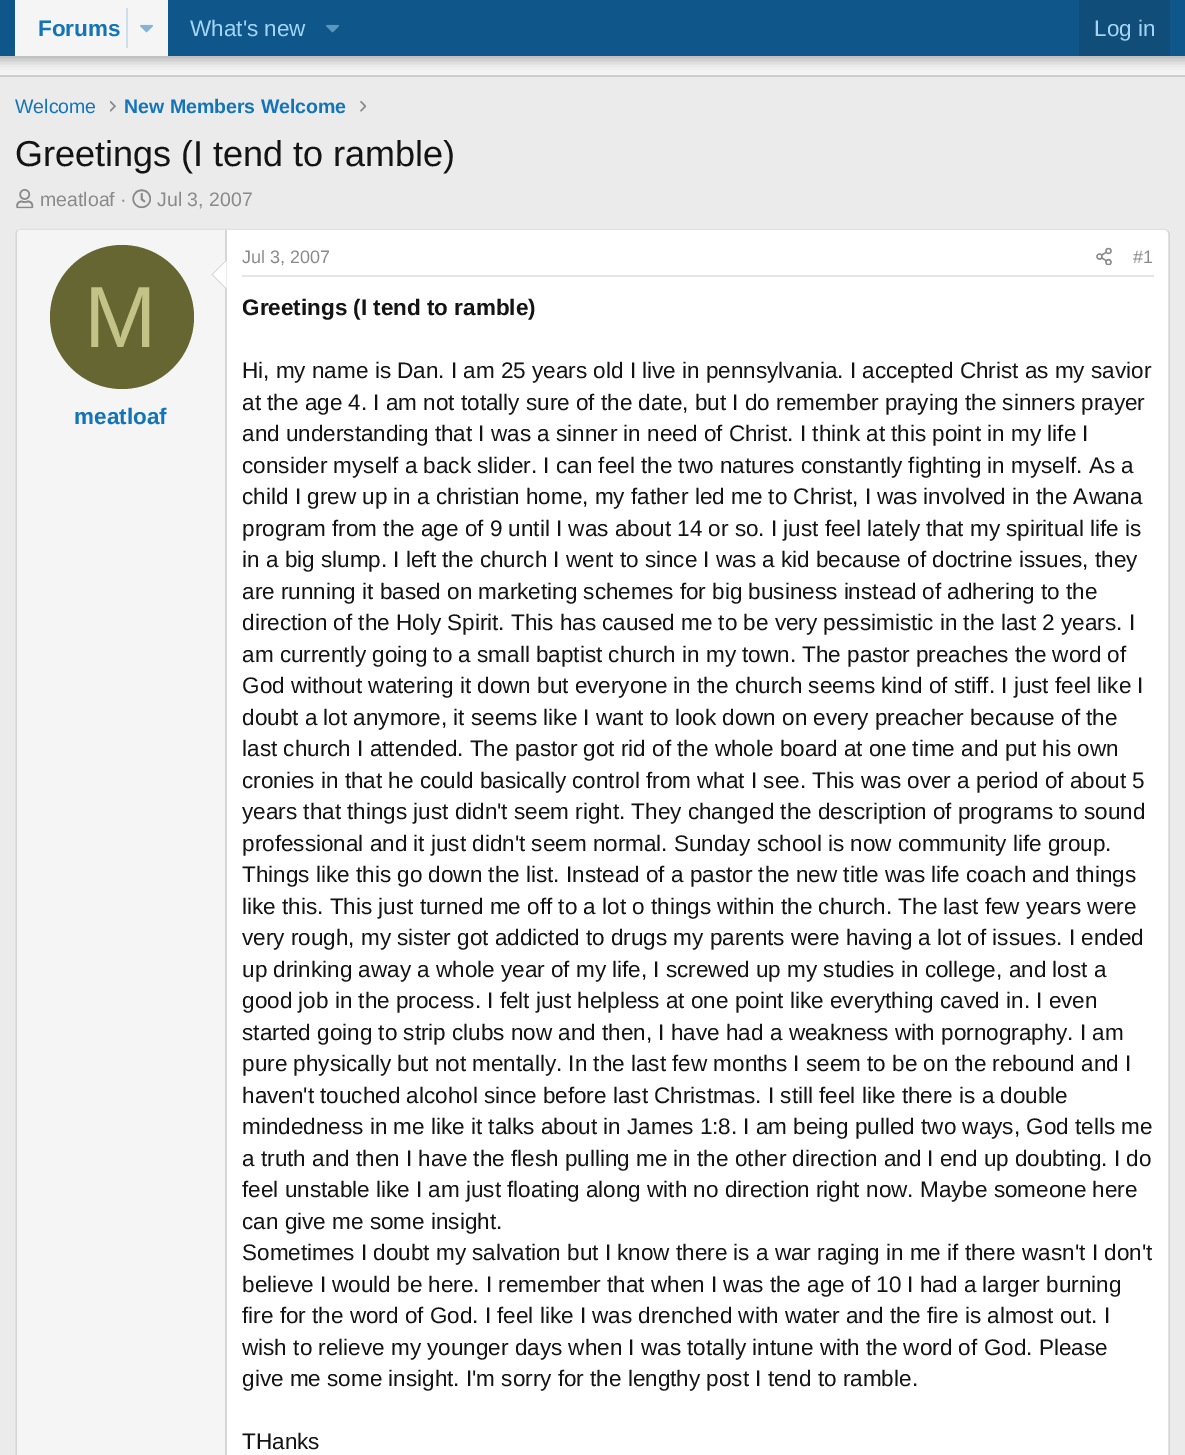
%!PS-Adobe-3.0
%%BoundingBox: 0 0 1185 1455
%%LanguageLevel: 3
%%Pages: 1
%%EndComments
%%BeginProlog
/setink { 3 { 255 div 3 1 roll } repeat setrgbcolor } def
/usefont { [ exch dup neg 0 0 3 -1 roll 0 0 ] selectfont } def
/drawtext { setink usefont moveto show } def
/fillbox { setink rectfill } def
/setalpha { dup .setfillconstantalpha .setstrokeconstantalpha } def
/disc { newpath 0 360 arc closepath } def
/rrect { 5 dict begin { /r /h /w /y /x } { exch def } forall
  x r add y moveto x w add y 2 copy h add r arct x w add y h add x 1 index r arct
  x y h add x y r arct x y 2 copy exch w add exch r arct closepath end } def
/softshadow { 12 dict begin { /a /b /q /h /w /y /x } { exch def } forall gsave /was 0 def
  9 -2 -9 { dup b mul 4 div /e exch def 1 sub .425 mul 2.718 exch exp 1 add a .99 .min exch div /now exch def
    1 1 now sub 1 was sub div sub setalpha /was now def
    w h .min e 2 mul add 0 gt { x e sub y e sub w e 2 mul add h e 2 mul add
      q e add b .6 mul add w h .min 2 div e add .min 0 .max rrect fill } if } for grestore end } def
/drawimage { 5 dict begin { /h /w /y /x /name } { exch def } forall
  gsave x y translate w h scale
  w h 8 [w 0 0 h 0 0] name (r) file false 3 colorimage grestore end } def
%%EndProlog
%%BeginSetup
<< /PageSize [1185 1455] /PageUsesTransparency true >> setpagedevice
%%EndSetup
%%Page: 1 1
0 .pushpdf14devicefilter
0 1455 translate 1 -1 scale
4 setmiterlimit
0 0 1185 1455 235 235 235 fillbox
0 56 1185 19 245 245 245 fillbox
0 75 1185 2 204 204 204 fillbox
0 0 0 setink
-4 -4 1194 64 0 6 0.3 softshadow
0 0 1185 56 15 87 138 fillbox
15 0 153 56 245 245 245 fillbox
(Forums) 38 36 /LiberationSans-Bold 22.5 20 116 184 drawtext
126 8 2 40 206 223 235 fillbox
(assets/img1.rgb) 140 24 13 9 drawimage
(What's new) 190 36 /LiberationSans-Regular 22.5 163 212 245 drawtext
(assets/img2.rgb) 326 24 13 9 drawimage
1079 0 91 56 16 77 120 fillbox
(Log in) 1094 36 /LiberationSans-Regular 22.5 163 212 245 drawtext
(Welcome) 15 113 /LiberationSans-Regular 19.5 20 116 184 drawtext
(assets/img3.rgb) 110 100 6 12 drawimage
(New Members Welcome) 124 113 /LiberationSans-Bold 19.5 20 116 184 drawtext
(assets/img4.rgb) 360 100 6 12 drawimage
(Greetings \(I tend to ramble\)) 15 166 /LiberationSans-Regular 36 20 20 20 drawtext
(assets/img5.rgb) 16 189 18 20 drawimage
(meatloaf ·) 40 206 /LiberationSans-Regular 19.5 138 138 138 drawtext
(assets/img6.rgb) 132 189 19 20 drawimage
(Jul 3, 2007) 157 206 /LiberationSans-Regular 19.5 138 138 138 drawtext
255 255 255 setink
15 228 1155 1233 6 rrect fill
224 224 224 setink
1.5 setlinewidth
17.5 230.5 moveto 18.5 229.5 19.5 229 21 229 curveto 1164 229 lineto 1165.5 229 1166.5 229.5 1167.5 230.5 curveto stroke
214 214 214 setink
1167.5 230.5 moveto 1168.5 231.5 1169 232.5 1169 234 curveto 1169 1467 lineto 1169 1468.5 1168.5 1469.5 1167.5 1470.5 curveto stroke
17.5 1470.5 moveto 16.5 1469.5 16 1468.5 16 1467 curveto 16 234 lineto 16 232.5 16.5 231.5 17.5 230.5 curveto stroke
245 245 245 setink
22 230 moveto 227 230 lineto 227 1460 lineto 22 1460 lineto 19 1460 17 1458 17 1455 curveto 17 235 lineto 17 232 19 230 22 230 curveto closepath fill
225 230 2 1225 214 214 214 fillbox
226.5 259.5 moveto 226.5 289.5 lineto 211.5 274.5 lineto closepath fill
255 255 255 setink
226.5 261 moveto 226.5 288 lineto 213 274.5 lineto closepath fill
102 102 51 setink
122 317 72 disc fill
(M) 84 347 /LiberationSans-Regular 87 195 195 136 drawtext
(meatloaf) 74 424 /LiberationSans-Bold 22.5 20 116 184 drawtext
242 275 912 2 229 229 229 fillbox
(Jul 3, 2007) 242 263 /LiberationSans-Regular 18 138 138 138 drawtext
(assets/img7.rgb) 1096 247 16 19 drawimage
(#1) 1133 263 /LiberationSans-Regular 18 138 138 138 drawtext
(Greetings \(I tend to ramble\)) 242 315 /LiberationSans-Bold 22.5 20 20 20 drawtext
(Hi, my name is Dan. I am 25 years old I live in pennsylvania. I accepted Christ as my savior) 242 378 /LiberationSans-Regular 22.5 20 20 20 drawtext
(at the age 4. I am not totally sure of the date, but I do remember praying the sinners prayer) 242 410 /LiberationSans-Regular 22.5 20 20 20 drawtext
(and understanding that I was a sinner in need of Christ. I think at this point in my life I) 242 441 /LiberationSans-Regular 22.5 20 20 20 drawtext
(consider myself a back slider. I can feel the two natures constantly fighting in myself. As a) 242 473 /LiberationSans-Regular 22.5 20 20 20 drawtext
(child I grew up in a christian home, my father led me to Christ, I was involved in the Awana) 242 504 /LiberationSans-Regular 22.5 20 20 20 drawtext
(program from the age of 9 until I was about 14 or so. I just feel lately that my spiritual life is) 242 536 /LiberationSans-Regular 22.5 20 20 20 drawtext
(in a big slump. I left the church I went to since I was a kid because of doctrine issues, they) 242 567 /LiberationSans-Regular 22.5 20 20 20 drawtext
(are running it based on marketing schemes for big business instead of adhering to the) 242 599 /LiberationSans-Regular 22.5 20 20 20 drawtext
(direction of the Holy Spirit. This has caused me to be very pessimistic in the last 2 years. I) 242 630 /LiberationSans-Regular 22.5 20 20 20 drawtext
(am currently going to a small baptist church in my town. The pastor preaches the word of) 242 662 /LiberationSans-Regular 22.5 20 20 20 drawtext
(God without watering it down but everyone in the church seems kind of stiff. I just feel like I) 242 693 /LiberationSans-Regular 22.5 20 20 20 drawtext
(doubt a lot anymore, it seems like I want to look down on every preacher because of the) 242 725 /LiberationSans-Regular 22.5 20 20 20 drawtext
(last church I attended. The pastor got rid of the whole board at one time and put his own) 242 756 /LiberationSans-Regular 22.5 20 20 20 drawtext
(cronies in that he could basically control from what I see. This was over a period of about 5) 242 788 /LiberationSans-Regular 22.5 20 20 20 drawtext
(years that things just didn't seem right. They changed the description of programs to sound) 242 819 /LiberationSans-Regular 22.5 20 20 20 drawtext
(professional and it just didn't seem normal. Sunday school is now community life group.) 242 851 /LiberationSans-Regular 22.5 20 20 20 drawtext
(Things like this go down the list. Instead of a pastor the new title was life coach and things) 242 882 /LiberationSans-Regular 22.5 20 20 20 drawtext
(like this. This just turned me off to a lot o things within the church. The last few years were) 242 914 /LiberationSans-Regular 22.5 20 20 20 drawtext
(very rough, my sister got addicted to drugs my parents were having a lot of issues. I ended) 242 945 /LiberationSans-Regular 22.5 20 20 20 drawtext
(up drinking away a whole year of my life, I screwed up my studies in college, and lost a) 242 977 /LiberationSans-Regular 22.5 20 20 20 drawtext
(good job in the process. I felt just helpless at one point like everything caved in. I even) 242 1008 /LiberationSans-Regular 22.5 20 20 20 drawtext
(started going to strip clubs now and then, I have had a weakness with pornography. I am) 242 1040 /LiberationSans-Regular 22.5 20 20 20 drawtext
(pure physically but not mentally. In the last few months I seem to be on the rebound and I) 242 1071 /LiberationSans-Regular 22.5 20 20 20 drawtext
(haven't touched alcohol since before last Christmas. I still feel like there is a double) 242 1103 /LiberationSans-Regular 22.5 20 20 20 drawtext
(mindedness in me like it talks about in James 1:8. I am being pulled two ways, God tells me) 242 1134 /LiberationSans-Regular 22.5 20 20 20 drawtext
(a truth and then I have the flesh pulling me in the other direction and I end up doubting. I do) 242 1166 /LiberationSans-Regular 22.5 20 20 20 drawtext
(feel unstable like I am just floating along with no direction right now. Maybe someone here) 242 1197 /LiberationSans-Regular 22.5 20 20 20 drawtext
(can give me some insight.) 242 1229 /LiberationSans-Regular 22.5 20 20 20 drawtext
(Sometimes I doubt my salvation but I know there is a war raging in me if there wasn't I don't) 242 1260 /LiberationSans-Regular 22.5 20 20 20 drawtext
(believe I would be here. I remember that when I was the age of 10 I had a larger burning) 242 1292 /LiberationSans-Regular 22.5 20 20 20 drawtext
(fire for the word of God. I feel like I was drenched with water and the fire is almost out. I) 242 1323 /LiberationSans-Regular 22.5 20 20 20 drawtext
(wish to relieve my younger days when I was totally intune with the word of God. Please) 242 1355 /LiberationSans-Regular 22.5 20 20 20 drawtext
(give me some insight. I'm sorry for the lengthy post I tend to ramble.) 242 1386 /LiberationSans-Regular 22.5 20 20 20 drawtext
(THanks) 242 1449 /LiberationSans-Regular 22.5 20 20 20 drawtext
.poppdf14devicefilter showpage
%%EOF
